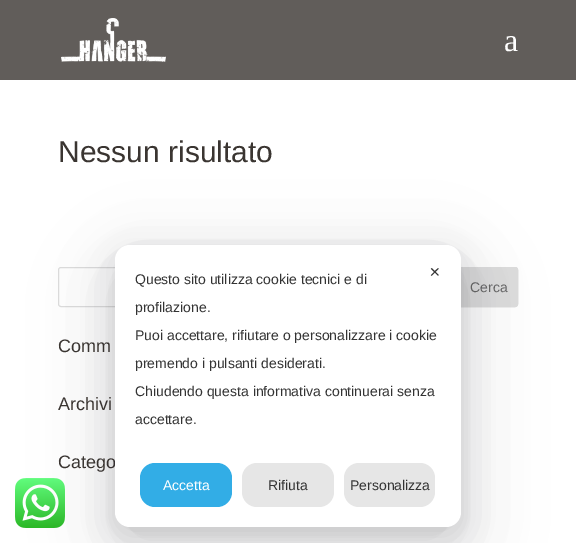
%!PS-Adobe-3.0
%%BoundingBox: 0 0 576 543
%%LanguageLevel: 3
%%Pages: 1
%%EndComments
%%BeginProlog
/setink { 3 { 255 div 3 1 roll } repeat setrgbcolor } def
/usefont { [ exch dup neg 0 0 3 -1 roll 0 0 ] selectfont } def
/drawtext { setink usefont moveto show } def
/fillbox { setink rectfill } def
/setalpha { dup .setfillconstantalpha .setstrokeconstantalpha } def
/rrect { 5 dict begin { /r /h /w /y /x } { exch def } forall
  x r add y moveto x w add y 2 copy h add r arct x w add y h add x 1 index r arct
  x y h add x y r arct x y 2 copy exch w add exch r arct closepath end } def
/softshadow { 12 dict begin { /a /b /q /h /w /y /x } { exch def } forall gsave /was 0 def
  9 -2 -9 { dup b mul 4 div /e exch def 1 sub .425 mul 2.718 exch exp 1 add a .99 .min exch div /now exch def
    1 1 now sub 1 was sub div sub setalpha /was now def
    w h .min e 2 mul add 0 gt { x e sub y e sub w e 2 mul add h e 2 mul add
      q e add b .6 mul add w h .min 2 div e add .min 0 .max rrect fill } if } for grestore end } def
/drawimage { 5 dict begin { /h /w /y /x /name } { exch def } forall
  gsave x y translate w h scale
  w h 8 [w 0 0 h 0 0] name (r) file false 3 colorimage grestore end } def
%%EndProlog
%%BeginSetup
<< /PageSize [576 543] /PageUsesTransparency true >> setpagedevice
%%EndSetup
%%Page: 1 1
0 .pushpdf14devicefilter
0 543 translate 1 -1 scale
4 setmiterlimit
0 0 576 543 255 255 255 fillbox
0 0 576 80 97 93 90 fillbox
(assets/img1.rgb) 61 18 105 44 drawimage
(a) 504 51 /LiberationSerif-Regular 32 255 255 255 drawtext
(Nessun risultato) 58 162 /LiberationSans-Regular 30 58 53 49 drawtext
221 221 221 setink
58.5 267.5 459 39 2.5 rrect stroke
459.5 267.5 moveto 515 267.5 lineto 516.5 267.5 517.5 268.5 517.5 270 curveto 517.5 304 lineto 517.5 305.5 516.5 306.5 515 306.5 curveto 459.5 306.5 lineto closepath gsave fill grestore
stroke
(Cerca) 470 292 /LiberationSans-Regular 14 102 102 102 drawtext
(Comm) 58 352 /LiberationSans-Regular 18 58 53 49 drawtext
(Archivi) 58 410 /LiberationSans-Regular 18 58 53 49 drawtext
(Catego) 58 468 /LiberationSans-Regular 18 58 53 49 drawtext
(assets/img2.rgb) 15 478 50 50 drawimage
17 17 26 setink
115 269 346 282 15 40 0.1 softshadow
115 261 346 282 15 28 0.1 softshadow
115 253 346 282 15 12 0.1 softshadow
255 255 255 setink
115 245 346 282 15 rrect fill
(✕) 429 277 /DejaVuSans-Regular 14 51 51 51 drawtext
(Questo sito utilizza cookie tecnici e di) 135 284 /LiberationSans-Regular 14 51 51 51 drawtext
(profilazione.) 135 312 /LiberationSans-Regular 14 51 51 51 drawtext
(Puoi accettare, rifiutare o personalizzare i cookie) 135 340 /LiberationSans-Regular 14 51 51 51 drawtext
(premendo i pulsanti desiderati.) 135 368 /LiberationSans-Regular 14 51 51 51 drawtext
(Chiudendo questa informativa continuerai senza) 135 396 /LiberationSans-Regular 14 51 51 51 drawtext
(accettare.) 135 424 /LiberationSans-Regular 14 51 51 51 drawtext
50 173 230 setink
140 463 92 44 15 rrect fill
(Accetta) 163 490 /LiberationSans-Regular 14 255 255 255 drawtext
230 230 230 setink
242 463 92 44 15 rrect fill
(Rifiuta) 268 490 /LiberationSans-Regular 14 51 51 51 drawtext
230 230 230 setink
344 463 91 44 15 rrect fill
(Personalizza) 350 490 /LiberationSans-Regular 14 51 51 51 drawtext
.poppdf14devicefilter showpage
%%EOF
